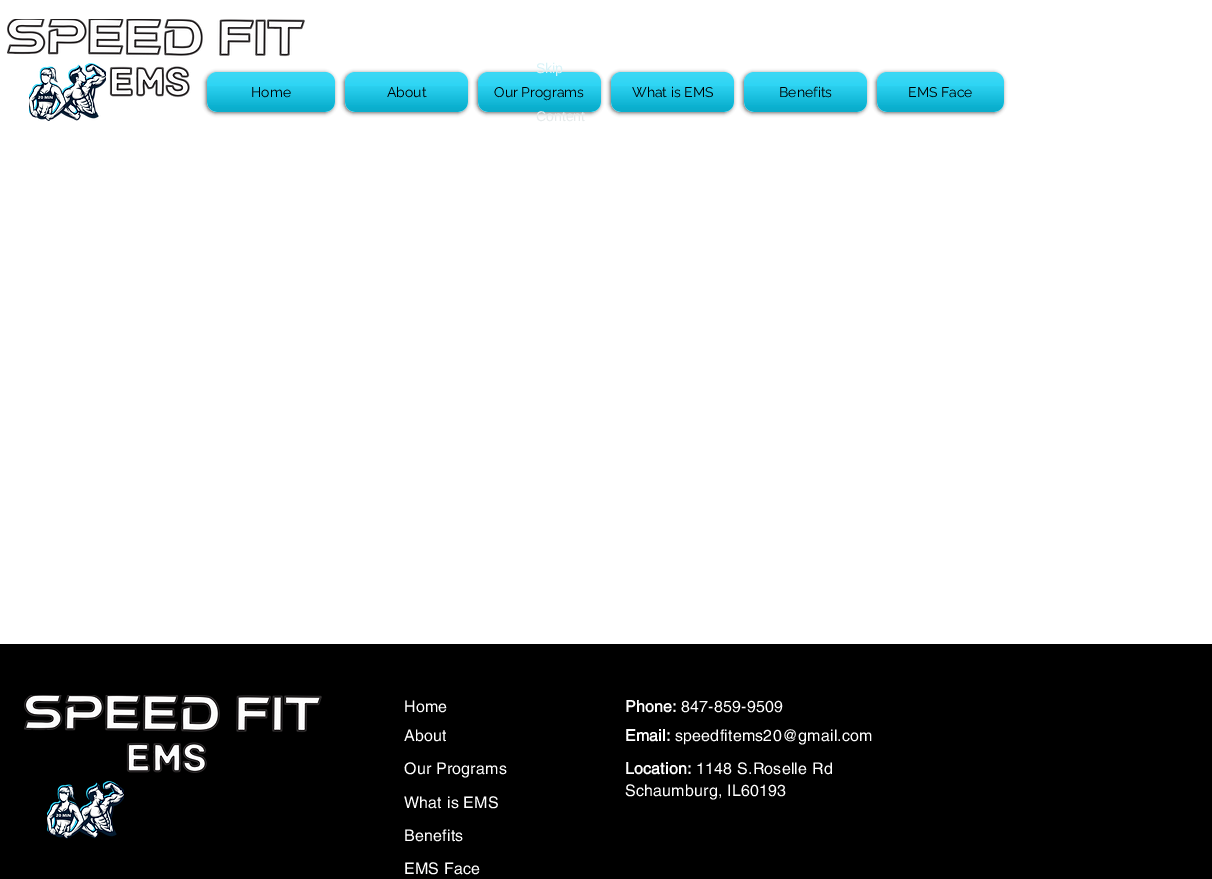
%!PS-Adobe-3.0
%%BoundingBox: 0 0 1212 879
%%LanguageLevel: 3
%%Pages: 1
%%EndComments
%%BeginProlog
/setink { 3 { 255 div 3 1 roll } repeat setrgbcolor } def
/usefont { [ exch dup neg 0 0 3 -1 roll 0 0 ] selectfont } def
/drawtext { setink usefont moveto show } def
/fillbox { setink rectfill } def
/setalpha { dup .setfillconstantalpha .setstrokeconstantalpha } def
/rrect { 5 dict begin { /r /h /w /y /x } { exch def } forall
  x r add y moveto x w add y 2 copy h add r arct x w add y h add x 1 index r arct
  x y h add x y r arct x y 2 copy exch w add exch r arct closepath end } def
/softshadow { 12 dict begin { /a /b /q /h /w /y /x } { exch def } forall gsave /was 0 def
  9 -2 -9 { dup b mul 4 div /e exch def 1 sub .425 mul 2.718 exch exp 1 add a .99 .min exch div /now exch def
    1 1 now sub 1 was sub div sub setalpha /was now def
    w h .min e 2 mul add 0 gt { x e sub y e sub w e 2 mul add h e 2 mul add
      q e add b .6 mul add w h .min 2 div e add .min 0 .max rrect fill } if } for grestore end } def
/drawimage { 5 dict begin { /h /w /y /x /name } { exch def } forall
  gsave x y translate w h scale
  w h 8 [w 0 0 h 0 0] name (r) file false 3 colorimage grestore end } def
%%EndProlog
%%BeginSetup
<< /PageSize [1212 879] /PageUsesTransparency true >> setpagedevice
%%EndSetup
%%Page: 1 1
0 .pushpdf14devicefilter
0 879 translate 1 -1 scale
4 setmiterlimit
0 0 1212 879 255 255 255 fillbox
0 0 0 setink
477 73 123 40 10 2 0.6 softshadow
13 206 242 setink
478 72 123 40 10 rrect fill
(assets/img5.rgb) 478 72 123 33 drawimage
(Skip) 536 73 /LiberationSans-Regular 14 215 242 247 drawtext
(assets/img6.rgb) 478 86 123 26 drawimage
(Content) 536 121 /LiberationSans-Regular 14 229 234 235 drawtext
(assets/img1.rgb) 7 19 298 79 drawimage
(assets/img2.rgb) 29 63 77 58 drawimage
0 0 0 setink
206 73 128 40 10 2 0.6 softshadow
13 206 242 setink
207 72 128 40 10 rrect fill
(assets/img3.rgb) 207 72 128 33 drawimage
(assets/img4.rgb) 207 86 128 26 drawimage
(Home) 251 97 /Raleway-Regular 14 0 0 0 drawtext
344 73 123 40 10 2 0.6 softshadow
13 206 242 setink
345 72 123 40 10 rrect fill
(assets/img5.rgb) 345 72 123 33 drawimage
(assets/img6.rgb) 345 86 123 26 drawimage
(About) 387 97 /Raleway-Regular 14 0 0 0 drawtext
(Our Programs) 494 97 /Raleway-Regular 14 0 0 0 drawtext
610 73 123 40 10 2 0.6 softshadow
13 206 242 setink
611 72 123 40 10 rrect fill
(assets/img5.rgb) 611 72 123 33 drawimage
(assets/img6.rgb) 611 86 123 26 drawimage
(What is EMS) 632 97 /Raleway-Regular 14 0 0 0 drawtext
743 73 123 40 10 2 0.6 softshadow
13 206 242 setink
744 72 123 40 10 rrect fill
(assets/img5.rgb) 744 72 123 33 drawimage
(assets/img6.rgb) 744 86 123 26 drawimage
(Benefits) 779 97 /Raleway-Regular 14 0 0 0 drawtext
876 73 127 40 10 2 0.6 softshadow
13 206 242 setink
877 72 127 40 10 rrect fill
(assets/img7.rgb) 877 72 127 33 drawimage
(assets/img8.rgb) 877 86 127 26 drawimage
(EMS Face) 908 97 /Raleway-Regular 14 0 0 0 drawtext
0 644 1212 235 0 0 0 fillbox
(assets/img9.rgb) 24 695 298 78 drawimage
/helvetica-Regular 16 usefont
255 255 255 setink
404 712 moveto 0.2 0 (Home) ashow
/helvetica-Bold 16 usefont
625 712 moveto 0.2 0 (Phone:) ashow
/helvetica-Regular 16 usefont
681 712 moveto 0.2 0 (847-859-9509) ashow
404 741 moveto 0.2 0 (About) ashow
/helvetica-Bold 16 usefont
625 741 moveto 0.2 0 (Email:) ashow
/helvetica-Regular 16 usefont
675 741 moveto 0.2 0 (speedfitems20@gmail.com) ashow
(assets/img10.rgb) 47 781 77 58 drawimage
404 774 moveto 0.2 0 (Our Programs) ashow
/helvetica-Bold 16 usefont
625 774 moveto 0.2 0 (Location:) ashow
/helvetica-Regular 16 usefont
696 774 moveto 0.2 0 (1148 S.Roselle Rd) ashow
625 796 moveto 0.2 0 (Schaumburg, IL60193) ashow
404 808 moveto 0.2 0 (What is EMS) ashow
404 841 moveto 0.2 0 (Benefits) ashow
404 874 moveto 0.2 0 (EMS Face) ashow
.poppdf14devicefilter showpage
%%EOF
